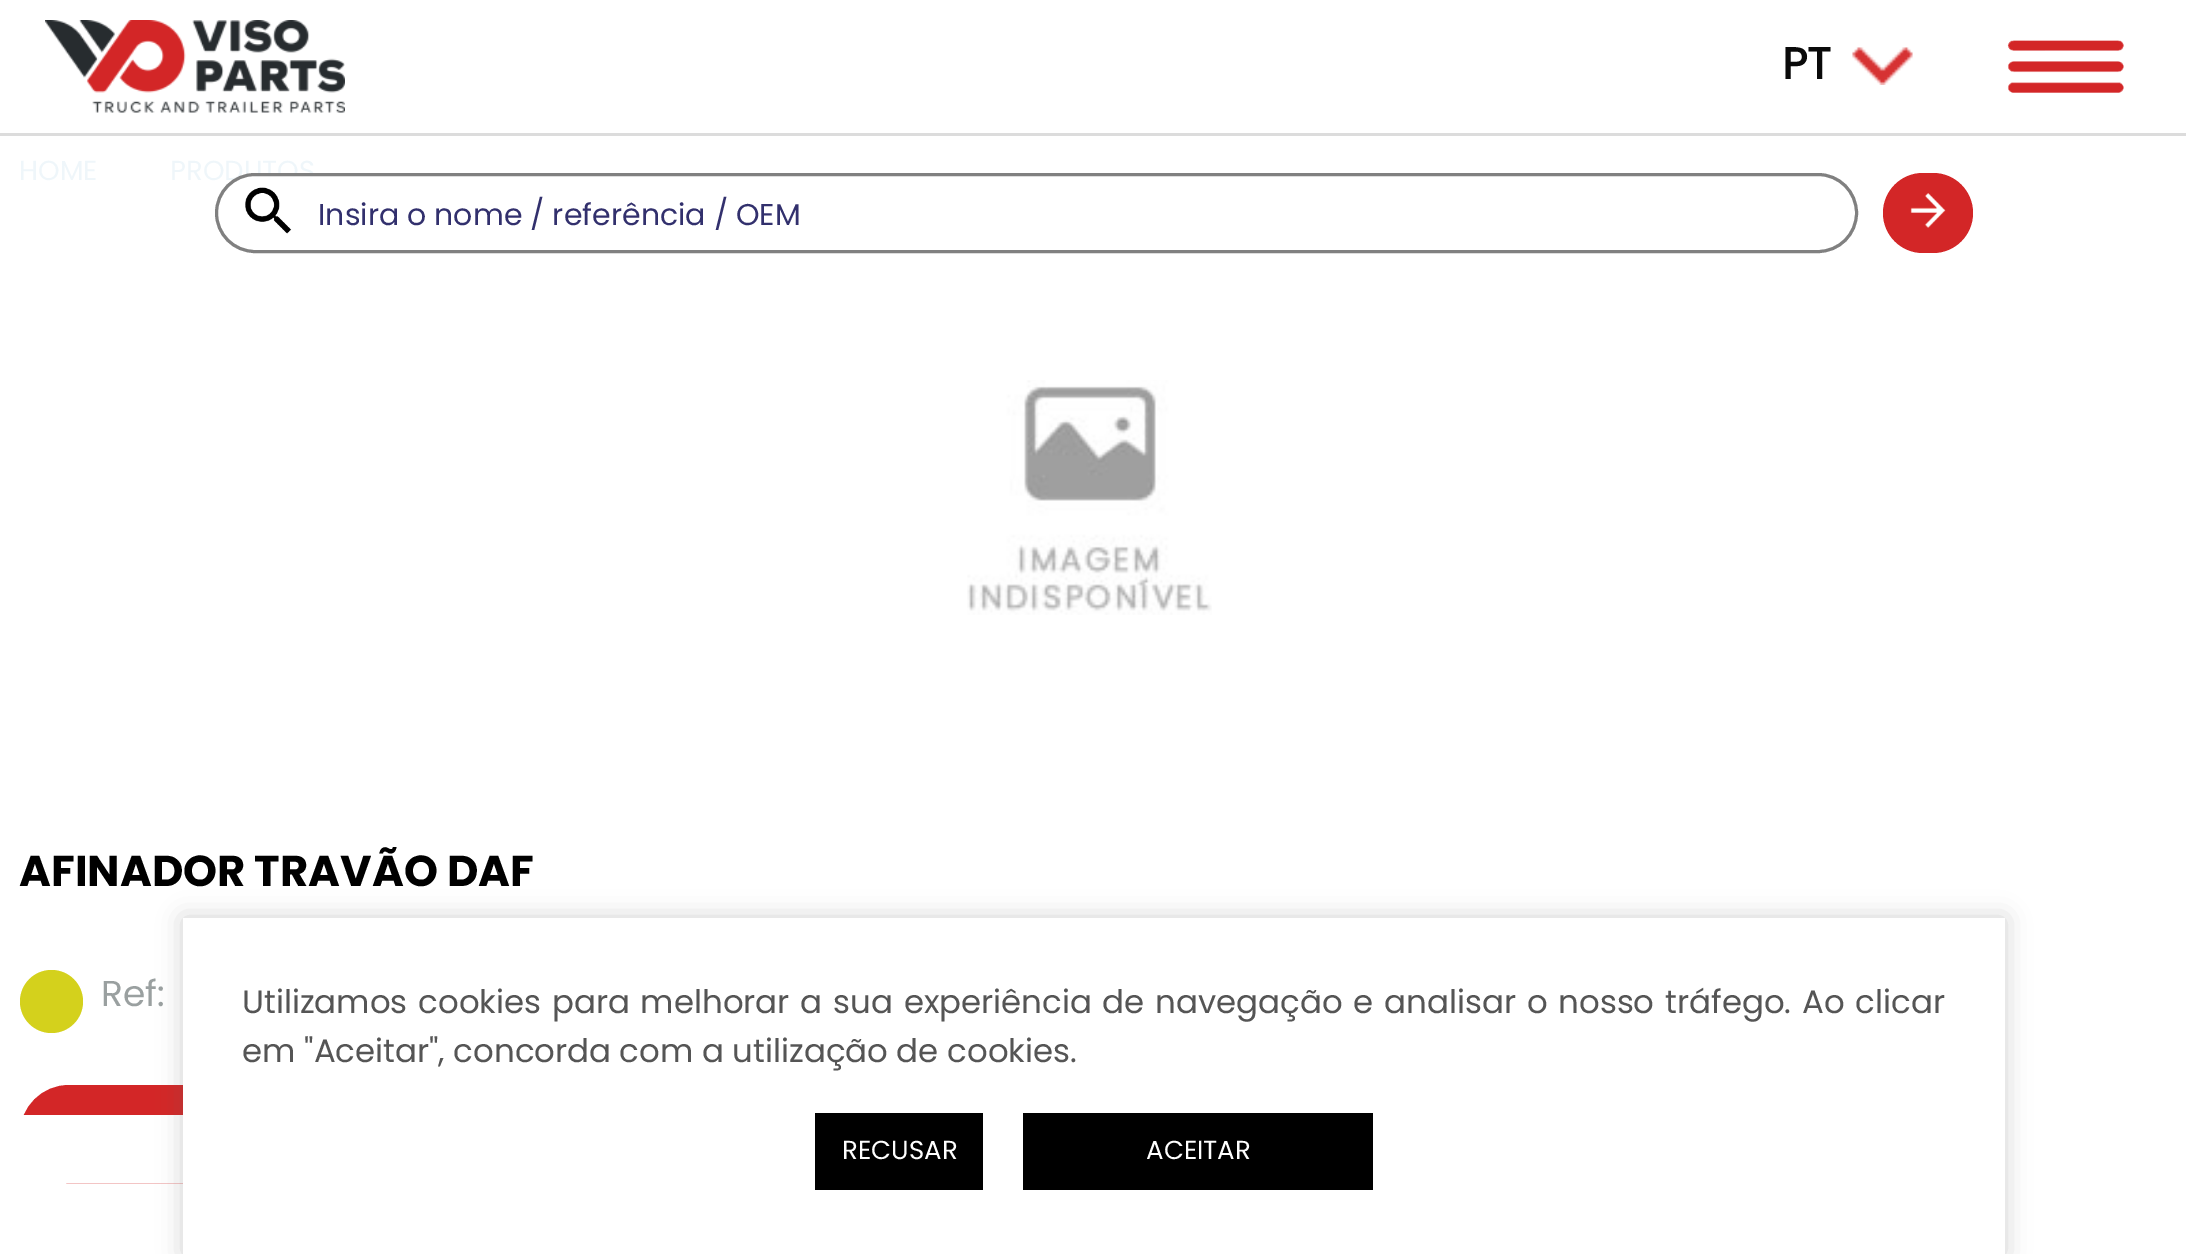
%!PS-Adobe-3.0
%%BoundingBox: 0 0 2186 1254
%%LanguageLevel: 3
%%Pages: 1
%%EndComments
%%BeginProlog
/setink { 3 { 255 div 3 1 roll } repeat setrgbcolor } def
/usefont { [ exch dup neg 0 0 3 -1 roll 0 0 ] selectfont } def
/drawtext { setink usefont moveto show } def
/fillbox { setink rectfill } def
/setalpha { dup .setfillconstantalpha .setstrokeconstantalpha } def
/disc { newpath 0 360 arc closepath } def
/rrect { 5 dict begin { /r /h /w /y /x } { exch def } forall
  x r add y moveto x w add y 2 copy h add r arct x w add y h add x 1 index r arct
  x y h add x y r arct x y 2 copy exch w add exch r arct closepath end } def
/softshadow { 12 dict begin { /a /b /q /h /w /y /x } { exch def } forall gsave /was 0 def
  9 -2 -9 { dup b mul 4 div /e exch def 1 sub .425 mul 2.718 exch exp 1 add a .99 .min exch div /now exch def
    1 1 now sub 1 was sub div sub setalpha /was now def
    w h .min e 2 mul add 0 gt { x e sub y e sub w e 2 mul add h e 2 mul add
      q e add b .6 mul add w h .min 2 div e add .min 0 .max rrect fill } if } for grestore end } def
/drawimage { 5 dict begin { /h /w /y /x /name } { exch def } forall
  gsave x y translate w h scale
  w h 8 [w 0 0 h 0 0] name (r) file false 3 colorimage grestore end } def
%%EndProlog
%%BeginSetup
<< /PageSize [2186 1254] /PageUsesTransparency true >> setpagedevice
%%EndSetup
%%Page: 1 1
0 .pushpdf14devicefilter
0 1254 translate 1 -1 scale
4 setmiterlimit
0 0 2186 1254 255 255 255 fillbox
(assets/img1.rgb) 45 20 300 93 drawimage
(assets/img2.rgb) 1852 47 61 38 drawimage
(PT) 1782 79 /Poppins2-Bold 44 10 10 10 drawtext
(assets/img3.rgb) 2007 40 117 53 drawimage
(HOME) 19 180 /Poppins-Regular 27.5 239 246 250 drawtext
(PRODUTOS) 170 180 /Poppins-Regular 27.5 239 246 250 drawtext
(assets/img4.rgb) 967 380 245 235 drawimage
(AFINADOR TRAVÃO DAF) 19 886 /Poppins-Bold 43.25 0 0 0 drawtext
212 209 28 setink
51.5 1001.5 31.5 disc fill
(Ref:) 101 1006 /Poppins-Regular 36 154 160 160 drawtext
211 38 39 setink
22.5 1087.5 748 93 46.5 rrect gsave fill grestore
5 setlinewidth
stroke
0 133 2186 3 220 220 220 fillbox
0.93 setalpha
255 255 255 setink
215 173 1643 80 40 rrect fill
1 setalpha
(assets/img5.rgb) 245 187 47 47 drawimage
128 128 128 setink
3 setlinewidth
216.5 174.5 1640 77 38.5 rrect stroke
(Insira o nome / referência / OEM) 318 225 /Poppins-Regular 30 50 48 109 drawtext
211 38 39 setink
1883 173 90 80 40 rrect fill
(assets/img6.rgb) 1910 193 36 35 drawimage
20 1115 753 68 255 255 255 fillbox
102 102 102 setink
183 918 1822 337 0 12.5 0.3 softshadow
183 918 1822 336 255 255 255 fillbox
/Poppins-Regular 32.4 usefont
85 85 85 setink
242 1013 moveto 2.25 0 32 (Utilizamos cookies para melhorar a sua experiência de navegação e analisar o nosso tráfego. Ao clicar) widthshow
(em "Aceitar", concorda com a utilização de cookies.) 242 1062 /Poppins-Regular 32.4 85 85 85 drawtext
815 1113 168 77 0 0 0 fillbox
(RECUSAR) 842 1159 /Poppins-Regular 26 254 254 254 drawtext
1023 1113 350 77 0 0 0 fillbox
(ACEITAR) 1146 1159 /Poppins-Regular 26 254 254 254 drawtext
.poppdf14devicefilter showpage
%%EOF
